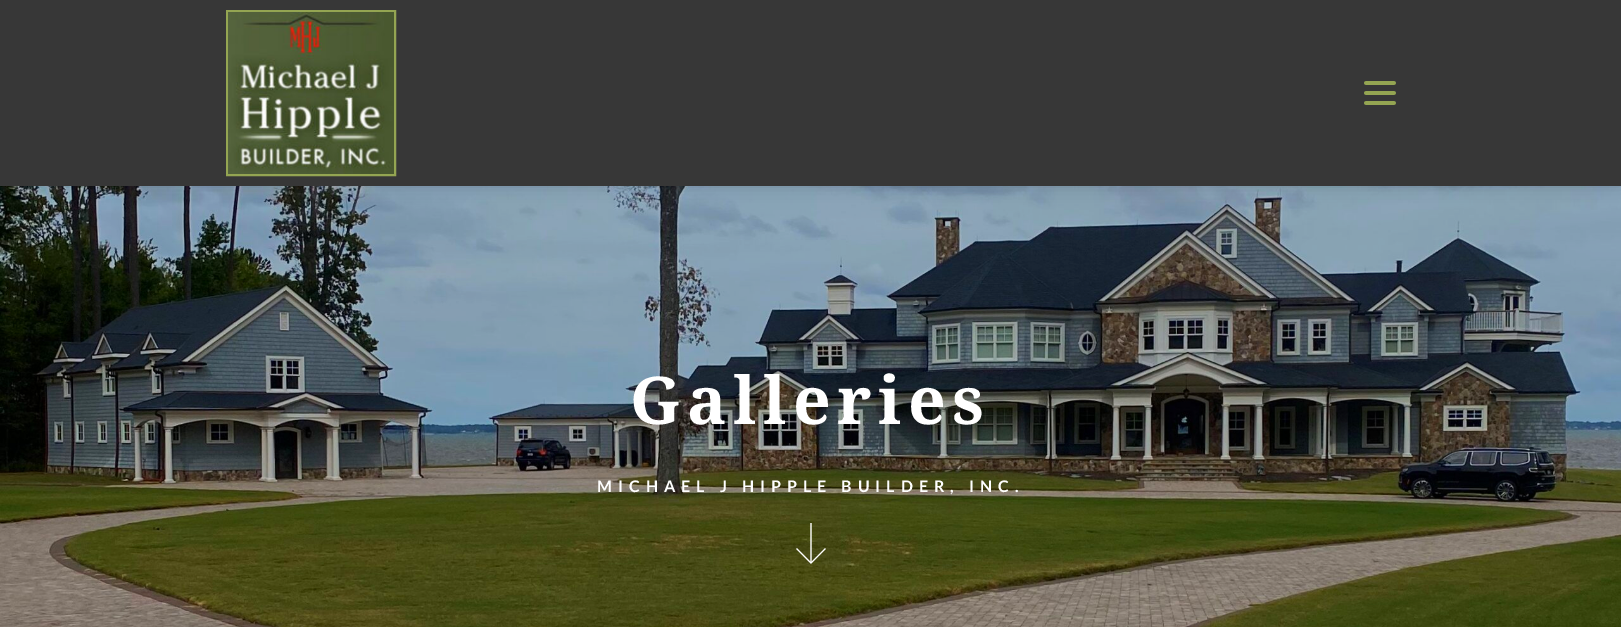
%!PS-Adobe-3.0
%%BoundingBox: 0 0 1621 627
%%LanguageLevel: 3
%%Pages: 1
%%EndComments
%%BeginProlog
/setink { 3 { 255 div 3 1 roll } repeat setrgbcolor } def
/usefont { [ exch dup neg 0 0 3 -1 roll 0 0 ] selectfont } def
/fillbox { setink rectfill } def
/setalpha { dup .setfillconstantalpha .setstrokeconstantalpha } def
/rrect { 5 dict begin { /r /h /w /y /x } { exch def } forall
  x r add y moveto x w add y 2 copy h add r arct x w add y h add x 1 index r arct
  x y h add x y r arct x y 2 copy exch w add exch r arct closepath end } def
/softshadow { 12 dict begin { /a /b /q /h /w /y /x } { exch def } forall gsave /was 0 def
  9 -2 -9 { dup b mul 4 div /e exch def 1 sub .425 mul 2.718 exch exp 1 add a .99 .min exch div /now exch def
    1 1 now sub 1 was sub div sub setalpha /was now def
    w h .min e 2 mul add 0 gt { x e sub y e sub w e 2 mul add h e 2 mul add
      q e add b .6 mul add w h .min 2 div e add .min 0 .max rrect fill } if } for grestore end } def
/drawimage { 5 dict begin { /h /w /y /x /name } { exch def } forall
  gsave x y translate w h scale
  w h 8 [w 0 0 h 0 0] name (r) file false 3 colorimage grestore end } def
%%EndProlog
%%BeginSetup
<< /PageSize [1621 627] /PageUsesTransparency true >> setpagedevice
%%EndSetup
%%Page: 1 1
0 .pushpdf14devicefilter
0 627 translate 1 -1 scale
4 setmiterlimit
0 0 1621 627 255 255 255 fillbox
(assets/img3.rgb) 0 186 1621 441 drawimage
0 0 0 setink
0 0 1621 186 0 7.5 0.15 softshadow
0 0 1621 186 55 55 55 fillbox
148 165 82 setink
2 setlinewidth
227 11 168 164 rectstroke
(assets/img1.rgb) 228 12 166 162 drawimage
(assets/img2.rgb) 1364 81 32 24 drawimage
/NotoSerif-Bold 66 usefont
255 255 255 setink
630 424 moveto 6.5 0 (Galleries) ashow
/Lato-Bold 16 usefont
597 492 moveto 6 0 (MICHAEL J HIPPLE BUILDER, INC.) ashow
(assets/img4.rgb) 796 523 30 41 drawimage
.poppdf14devicefilter showpage
%%EOF
